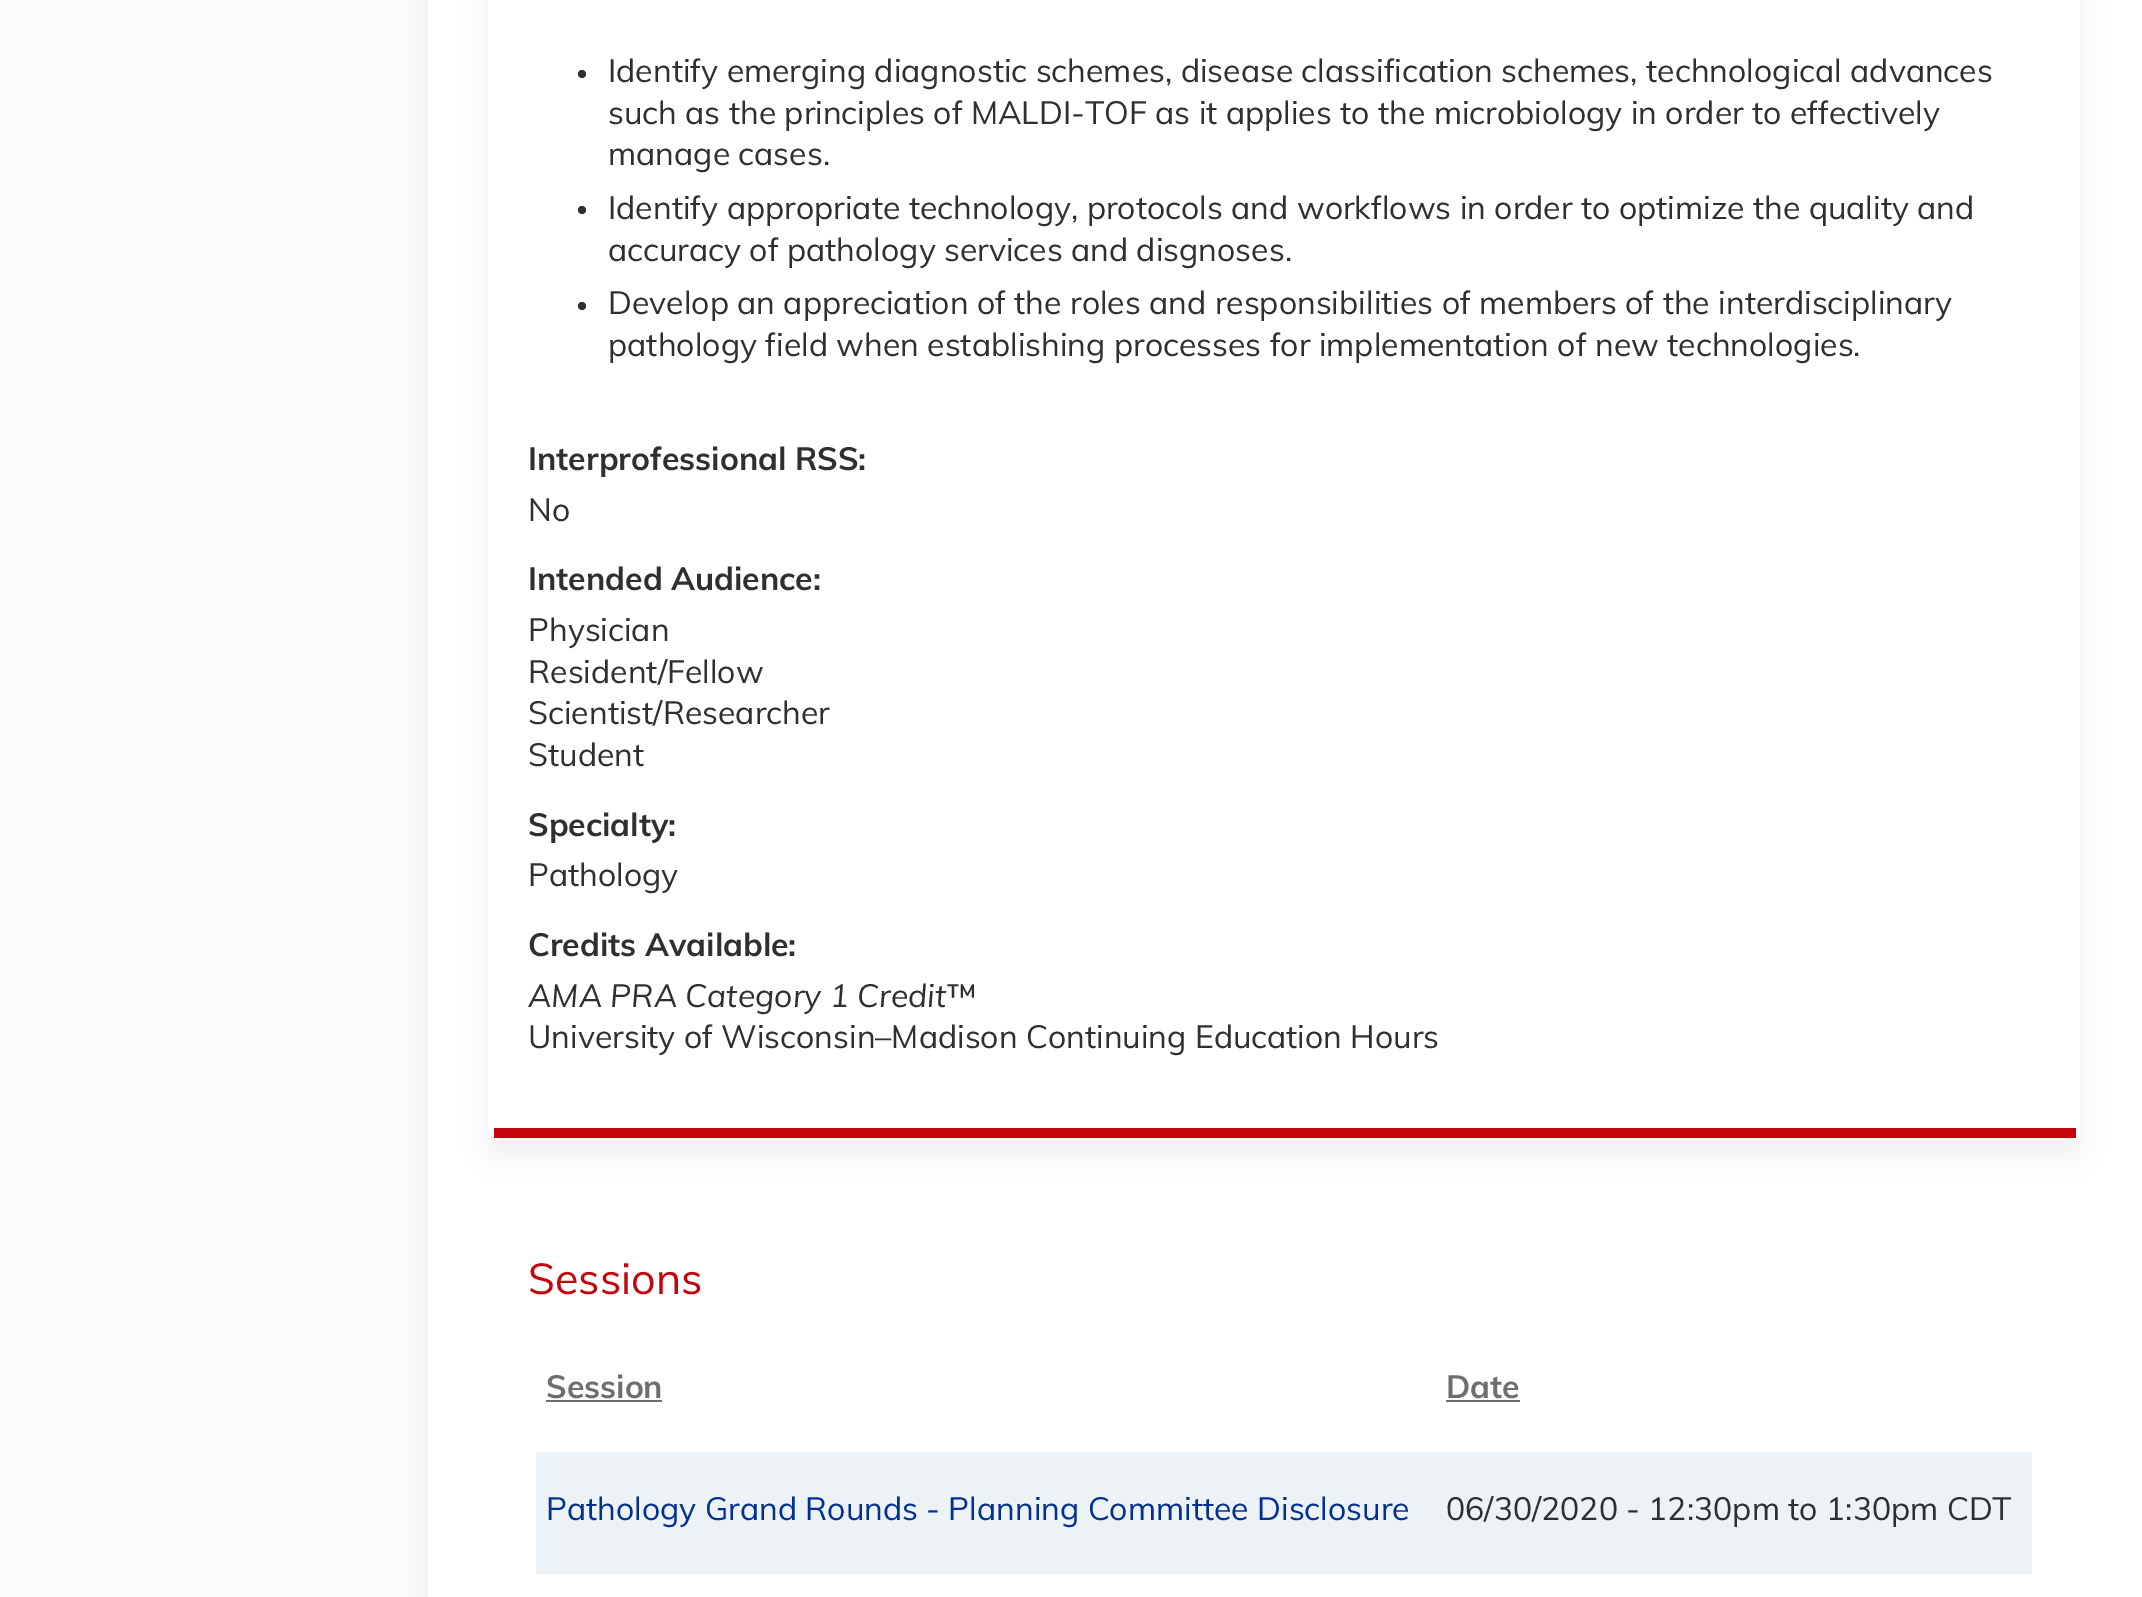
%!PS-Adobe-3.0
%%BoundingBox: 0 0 2142 1597
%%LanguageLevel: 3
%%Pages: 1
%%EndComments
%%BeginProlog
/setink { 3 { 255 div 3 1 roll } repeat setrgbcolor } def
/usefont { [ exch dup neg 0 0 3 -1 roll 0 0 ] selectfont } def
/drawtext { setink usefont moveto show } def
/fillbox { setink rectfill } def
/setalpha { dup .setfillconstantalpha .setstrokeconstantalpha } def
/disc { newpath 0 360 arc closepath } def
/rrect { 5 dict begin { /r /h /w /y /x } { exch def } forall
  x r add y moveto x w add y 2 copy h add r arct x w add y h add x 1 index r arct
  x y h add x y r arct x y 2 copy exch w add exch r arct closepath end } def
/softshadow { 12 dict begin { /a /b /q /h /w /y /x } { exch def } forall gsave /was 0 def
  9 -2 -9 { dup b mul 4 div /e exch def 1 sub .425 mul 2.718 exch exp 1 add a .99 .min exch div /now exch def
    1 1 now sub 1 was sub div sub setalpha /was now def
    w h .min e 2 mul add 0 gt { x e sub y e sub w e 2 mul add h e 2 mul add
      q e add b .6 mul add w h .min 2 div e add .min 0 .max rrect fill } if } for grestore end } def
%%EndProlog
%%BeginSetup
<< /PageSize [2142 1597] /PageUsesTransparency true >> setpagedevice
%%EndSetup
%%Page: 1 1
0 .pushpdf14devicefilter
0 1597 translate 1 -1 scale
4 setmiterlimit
0 0 2142 1597 251 251 253 fillbox
0 0 0 setink
428 -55 1714 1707 10 15 0.05 softshadow
428 0 1714 1597 255 255 255 fillbox
0 0 0 setink
488 -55 1592 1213 10 15 0.05 softshadow
255 255 255 setink
488 -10 1592 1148 10 rrect fill
494 1128 1582 10 197 5 12 fillbox
47 47 47 setink
582 74 4 disc fill
(Identify emerging diagnostic schemes, disease classification schemes, technological advances) 608 82 /Muli-Regular 32 47 47 47 drawtext
(such as the principles of MALDI-TOF as it applies to the microbiology in order to effectively) 608 124 /Muli-Regular 32 47 47 47 drawtext
(manage cases.) 608 165 /Muli-Regular 32 47 47 47 drawtext
582 210 4 disc fill
(Identify appropriate technology, protocols and workflows in order to optimize the quality and) 608 219 /Muli-Regular 32 47 47 47 drawtext
(accuracy of pathology services and disgnoses.) 608 261 /Muli-Regular 32 47 47 47 drawtext
582 306 4 disc fill
(Develop an appreciation of the roles and responsibilities of members of the interdisciplinary) 608 314 /Muli-Regular 32 47 47 47 drawtext
(pathology field when establishing processes for implementation of new technologies.) 608 356 /Muli-Regular 32 47 47 47 drawtext
(Interprofessional RSS:) 528 470 /Muli-Bold 32 47 47 47 drawtext
(No) 528 521 /Muli-Regular 32 47 47 47 drawtext
(Intended Audience:) 528 590 /Muli-Bold 32 47 47 47 drawtext
(Physician) 528 641 /Muli-Regular 32 47 47 47 drawtext
(Resident/Fellow) 528 683 /Muli-Regular 32 47 47 47 drawtext
(Scientist/Researcher) 528 724 /Muli-Regular 32 47 47 47 drawtext
(Student) 528 766 /Muli-Regular 32 47 47 47 drawtext
(Specialty:) 528 836 /Muli-Bold 32 47 47 47 drawtext
(Pathology) 528 886 /Muli-Regular 32 47 47 47 drawtext
(Credits Available:) 528 956 /Muli-Bold 32 47 47 47 drawtext
(AMA PRA Category 1 Credit) 528 1007 /Muli-Italic 32 47 47 47 drawtext
(™) 947 1007 /Muli-Regular 32 47 47 47 drawtext
(University of Wisconsin–Madison Continuing Education Hours) 528 1048 /Muli-Regular 32 47 47 47 drawtext
(Sessions) 528 1294 /Muli-Regular 43 197 5 12 drawtext
(Session) 546 1398 /Muli-Bold 32 110 110 110 drawtext
546 1400 116 2 110 110 110 fillbox
(Date) 1446 1398 /Muli-Bold 32 110 110 110 drawtext
1446 1400 74 2 110 110 110 fillbox
536 1452 1496 122 237 242 246 fillbox
(Pathology Grand Rounds - Planning Committee Disclosure) 546 1520 /Muli-Regular 32 0 49 146 drawtext
(06/30/2020 - 12:30pm to 1:30pm CDT) 1446 1520 /Muli-Regular 32 47 47 47 drawtext
.poppdf14devicefilter showpage
%%EOF
